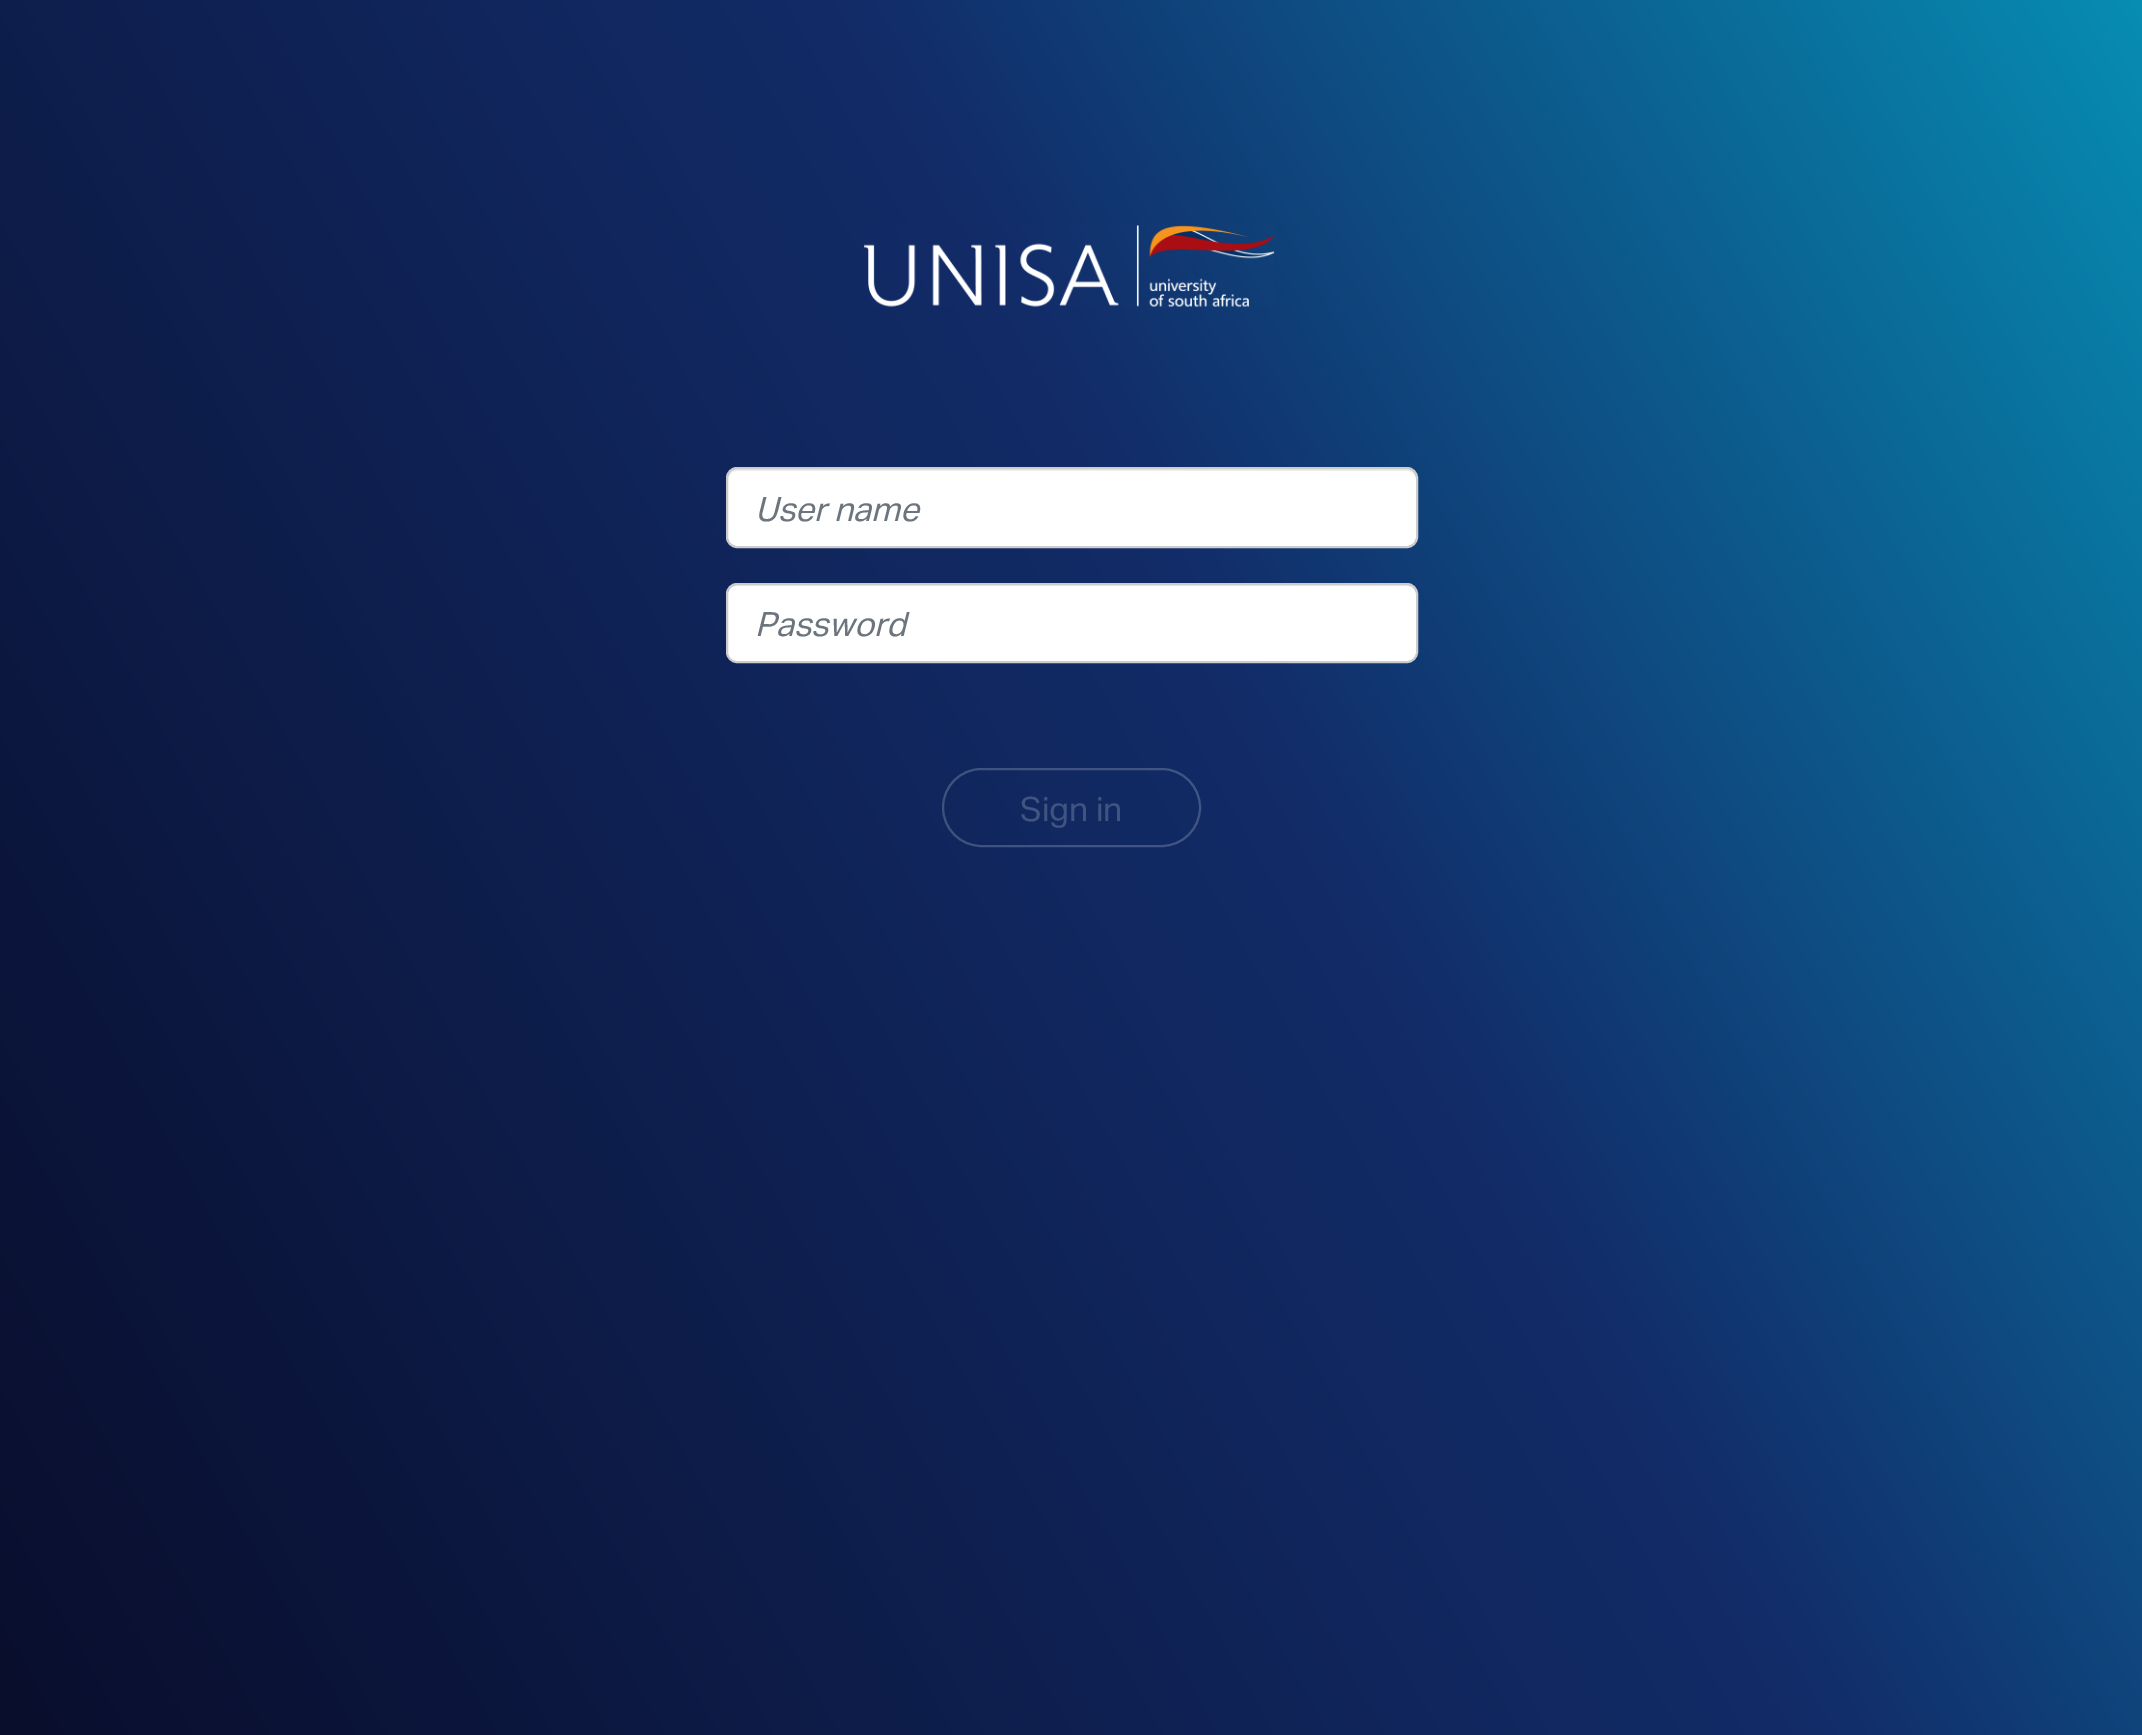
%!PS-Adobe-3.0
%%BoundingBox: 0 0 2142 1735
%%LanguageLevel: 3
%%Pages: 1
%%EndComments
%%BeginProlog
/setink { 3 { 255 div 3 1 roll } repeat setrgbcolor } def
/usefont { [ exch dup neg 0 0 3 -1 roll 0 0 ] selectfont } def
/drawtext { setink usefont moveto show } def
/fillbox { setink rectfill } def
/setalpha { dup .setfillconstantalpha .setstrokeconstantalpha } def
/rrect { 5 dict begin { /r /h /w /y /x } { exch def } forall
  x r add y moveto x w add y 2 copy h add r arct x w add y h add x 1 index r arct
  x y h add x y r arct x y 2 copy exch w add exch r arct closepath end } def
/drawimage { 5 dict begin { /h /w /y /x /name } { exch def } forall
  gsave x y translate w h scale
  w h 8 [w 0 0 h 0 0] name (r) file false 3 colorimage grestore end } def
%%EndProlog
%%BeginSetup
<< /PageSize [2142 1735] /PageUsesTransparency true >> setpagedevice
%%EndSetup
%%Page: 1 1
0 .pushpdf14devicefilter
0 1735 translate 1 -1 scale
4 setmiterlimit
0 0 2142 1735 255 255 255 fillbox
gsave 0 0 moveto 2142 0 lineto 2142 1735 lineto 0 1735 lineto closepath clip newpath
<< /ShadingType 2 /ColorSpace /DeviceRGB /Coords [-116 1526 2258 210] /Extend [true true] /Function << /FunctionType 3 /Domain [0 1] /Functions [<< /FunctionType 2 /Domain [0 1] /C0 [0.035 0.055 0.173] /C1 [0.071 0.173 0.412] /N 1 >> << /FunctionType 2 /Domain [0 1] /C0 [0.071 0.173 0.412] /C1 [0.027 0.553 0.702] /N 1 >>] /Bounds [0.59] /Encode [0 1 0 1] >> >> shfill grestore
(assets/img1.rgb) 864 225 411 82 drawimage
728 469 688 77 9 rrect fill
0.07 setalpha
0 0 0 setink
737 471 moveto 1407 471 lineto 1412 471 1416 475 1416 480 curveto 1416 478 lineto 1416 473 1412 469 1407 469 curveto 737 469 lineto 732 469 728 473 728 478 curveto 728 480 lineto 728 475 732 471 737 471 curveto closepath fill
1 setalpha
204 204 204 setink
2 setlinewidth
727 468 690 79 10 rrect stroke
(User name) 755 521 /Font-Italic 33.5 108 117 125 drawtext
255 255 255 setink
728 585 688 77 9 rrect fill
0.07 setalpha
0 0 0 setink
737 586 moveto 1407 586 lineto 1412 586 1416 590 1416 595 curveto 1416 590 1413 585 1407 585 curveto 737 585 lineto 731 585 728 590 728 595 curveto 728 590 732 586 737 586 curveto closepath fill
1 setalpha
204 204 204 setink
727 584 690 78 10 rrect stroke
(Password) 755 636 /Font-Italic 33.5 108 117 125 drawtext
0.2 setalpha
255 255 255 setink
943 769 257 77 38.5 rrect stroke
1 setalpha
(Sign in) 1020 821 /Font-Regular 33.5 65 83 128 drawtext
.poppdf14devicefilter showpage
%%EOF
